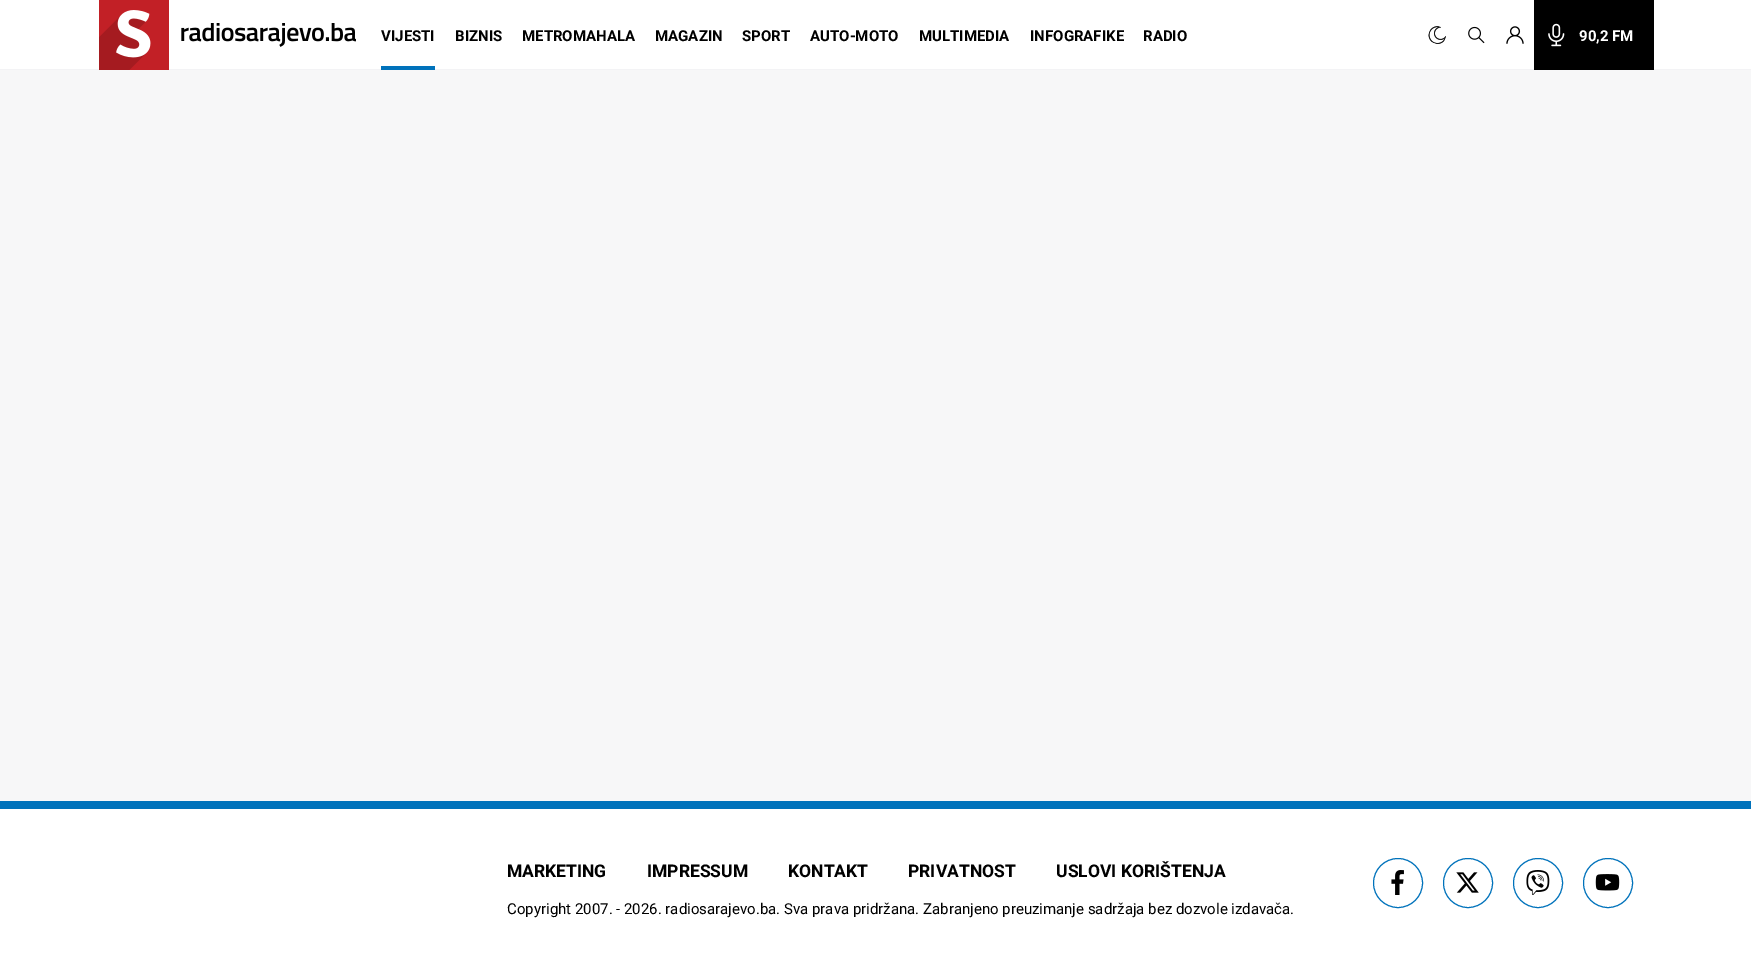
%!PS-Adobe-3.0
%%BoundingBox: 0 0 1751 954
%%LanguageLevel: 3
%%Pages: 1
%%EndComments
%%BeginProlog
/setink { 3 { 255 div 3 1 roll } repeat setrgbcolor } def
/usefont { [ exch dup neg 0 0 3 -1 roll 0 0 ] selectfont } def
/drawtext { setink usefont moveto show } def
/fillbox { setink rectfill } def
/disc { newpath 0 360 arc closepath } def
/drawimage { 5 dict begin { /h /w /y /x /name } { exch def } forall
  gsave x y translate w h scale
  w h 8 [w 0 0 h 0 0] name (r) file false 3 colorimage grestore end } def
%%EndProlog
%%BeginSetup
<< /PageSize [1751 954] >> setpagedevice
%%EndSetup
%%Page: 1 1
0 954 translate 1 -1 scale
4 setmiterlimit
0 0 1751 954 255 255 255 fillbox
0 69 1751 1 243 243 245 fillbox
99 0 70 70 194 32 38 fillbox
(assets/img1.rgb) 99 10 52 60 drawimage
(assets/img2.rgb) 181 23 175 24 drawimage
(VIJESTI) 381 41 /Roboto-Bold 15 0 0 0 drawtext
381 66 54 4 0 114 187 fillbox
(BIZNIS) 455 41 /Roboto-Bold 15 0 0 0 drawtext
(METROMAHALA) 522 41 /Roboto-Bold 15 0 0 0 drawtext
(MAGAZIN) 655 41 /Roboto-Bold 15 0 0 0 drawtext
(SPORT) 742 41 /Roboto-Bold 15 0 0 0 drawtext
(AUTO-MOTO) 810 41 /Roboto-Bold 15 0 0 0 drawtext
(MULTIMEDIA) 919 41 /Roboto-Bold 15 0 0 0 drawtext
(INFOGRAFIKE) 1030 41 /Roboto-Bold 15 0 0 0 drawtext
(RADIO) 1143 41 /Roboto-Bold 15 0 0 0 drawtext
(assets/img3.rgb) 1428 26 18 18 drawimage
(assets/img4.rgb) 1468 26 17 18 drawimage
(assets/img5.rgb) 1506 26 18 18 drawimage
1534 0 120 70 0 0 0 fillbox
(assets/img6.rgb) 1548 23 17 24 drawimage
(90,2 FM) 1579 41 /Roboto-Bold 15 255 255 255 drawtext
0 70 1751 731 247 247 248 fillbox
0 801 1751 8 0 114 187 fillbox
(MARKETING) 507 877 /Roboto-Bold 17.5 0 0 0 drawtext
(IMPRESSUM) 647 877 /Roboto-Bold 17.5 0 0 0 drawtext
(KONTAKT) 788 877 /Roboto-Bold 17.5 0 0 0 drawtext
(PRIVATNOST) 908 877 /Roboto-Bold 17.5 0 0 0 drawtext
(USLOVI KORIŠTENJA) 1056 877 /Roboto-Bold 17.5 0 0 0 drawtext
(Copyright 2007. - 2026. radiosarajevo.ba. Sva prava pridržana. Zabranjeno preuzimanje sadržaja bez dozvole izdavača.) 507 914 /Roboto-Regular 15 0 0 0 drawtext
0 114 187 setink
1398 883 24.5 disc stroke
(assets/img7.rgb) 1391 870 13 25 drawimage
1468 883 24.5 disc stroke
(assets/img8.rgb) 1456 872 23 21 drawimage
1538 883 24.5 disc stroke
(assets/img9.rgb) 1526 870 24 25 drawimage
1608 883 24.5 disc stroke
(assets/img10.rgb) 1595 874 25 17 drawimage
showpage
%%EOF
